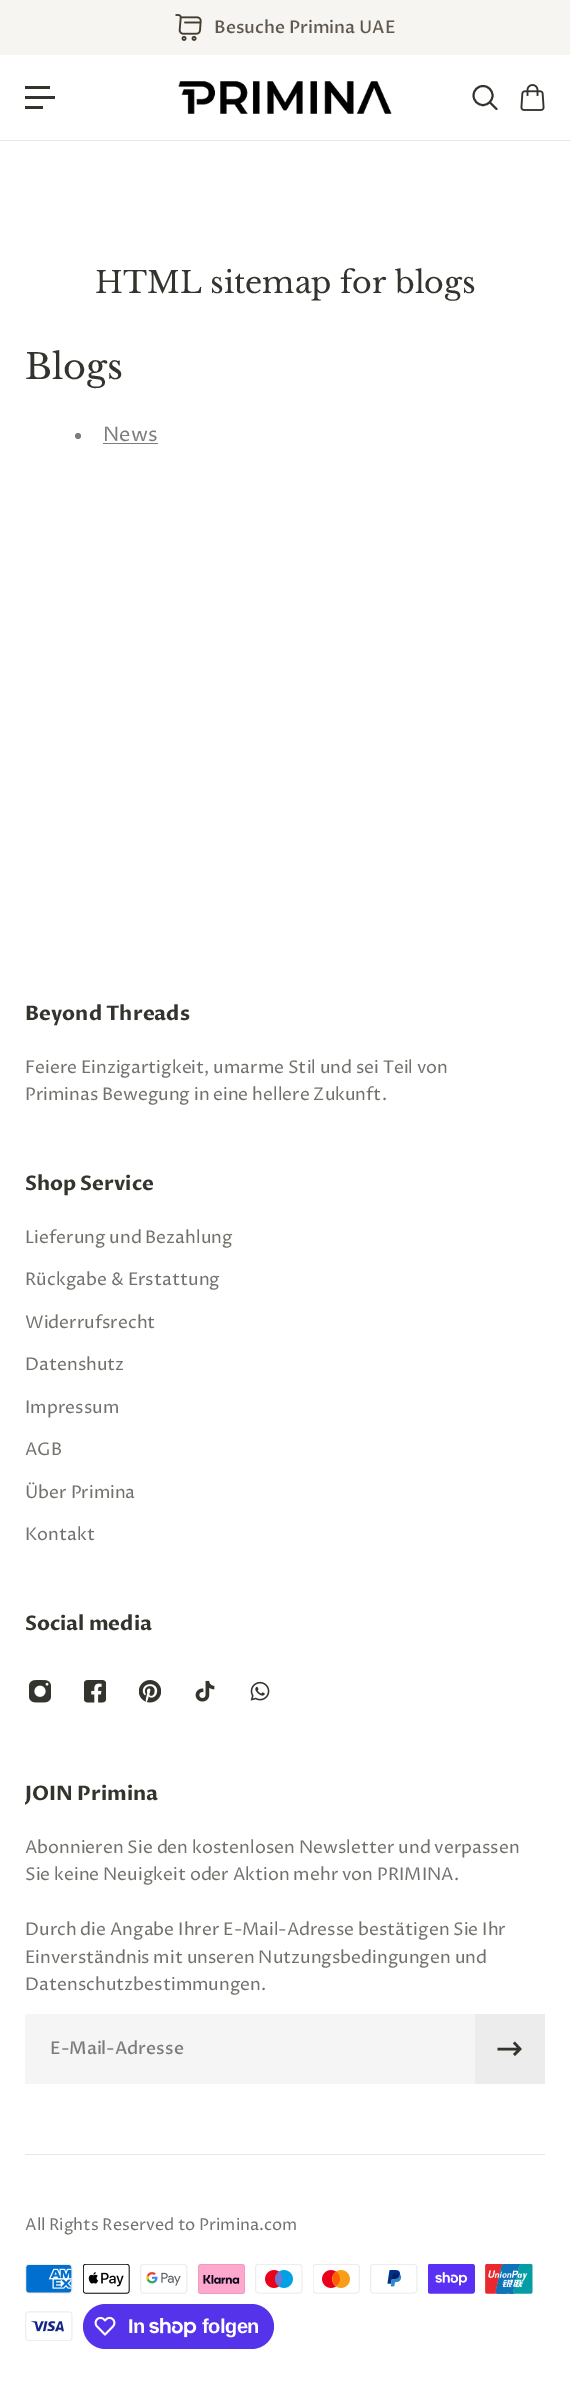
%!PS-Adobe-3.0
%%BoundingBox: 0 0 570 2386
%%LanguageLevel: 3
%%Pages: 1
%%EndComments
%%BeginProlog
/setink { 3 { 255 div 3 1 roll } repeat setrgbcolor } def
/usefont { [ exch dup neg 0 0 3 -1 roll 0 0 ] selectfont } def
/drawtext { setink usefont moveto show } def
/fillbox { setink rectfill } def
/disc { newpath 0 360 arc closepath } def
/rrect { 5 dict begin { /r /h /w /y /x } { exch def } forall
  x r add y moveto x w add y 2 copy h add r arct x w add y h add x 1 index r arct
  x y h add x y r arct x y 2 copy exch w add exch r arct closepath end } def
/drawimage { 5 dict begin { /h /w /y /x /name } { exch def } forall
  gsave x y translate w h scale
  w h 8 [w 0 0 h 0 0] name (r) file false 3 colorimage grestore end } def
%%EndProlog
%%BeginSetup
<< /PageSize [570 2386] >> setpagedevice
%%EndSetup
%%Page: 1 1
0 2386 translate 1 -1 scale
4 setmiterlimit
0 0 570 2386 255 255 255 fillbox
0 0 570 55 247 245 241 fillbox
(assets/img1.rgb) 175 14 27 27 drawimage
(Besuche Primina UAE) 214 33 /ProzaLibre-Medium 17.5 94 88 78 drawtext
0 140 570 1 231 231 231 fillbox
25 86 25 3 52 52 47 fillbox
25 96 30 3 52 52 47 fillbox
25 106 18 3 52 52 47 fillbox
(assets/img2.rgb) 178 81 214 33 drawimage
1.9 setlinewidth
483 95.5 9.5 disc stroke
1 setlinecap
1 setlinejoin
490.5 103 moveto 496.5 109 lineto stroke
(assets/img3.rgb) 520 84 25 27 drawimage
(HTML sitemap for blogs) 95 293 /LibreBaskerville-Regular 30 52 52 47 drawtext
(Blogs) 25 379 /LibreBaskerville-Regular 35 52 52 47 drawtext
124 124 124 setink
78 436 3 disc fill
(News) 103 441 /ProzaLibre-Regular 20 124 124 124 drawtext
103 443 55 1 124 124 124 fillbox
(Beyond Threads) 25 1020 /ProzaLibre-Bold 20 52 52 47 drawtext
(Feiere Einzigartigkeit, umarme Stil und sei Teil von) 25 1073 /ProzaLibre-Regular 17.5 113 113 109 drawtext
(Priminas Bewegung in eine hellere Zukunft.) 25 1100 /ProzaLibre-Regular 17.5 113 113 109 drawtext
(Shop Service) 25 1190 /ProzaLibre-Bold 20 52 52 47 drawtext
(Lieferung und Bezahlung) 25 1243 /ProzaLibre-Regular 17.5 113 113 109 drawtext
(Rückgabe & Erstattung) 25 1285 /ProzaLibre-Regular 17.5 113 113 109 drawtext
(Widerrufsrecht) 25 1328 /ProzaLibre-Regular 17.5 113 113 109 drawtext
(Datenshutz) 25 1370 /ProzaLibre-Regular 17.5 113 113 109 drawtext
(Impressum) 25 1413 /ProzaLibre-Regular 17.5 113 113 109 drawtext
(AGB) 25 1455 /ProzaLibre-Regular 17.5 113 113 109 drawtext
(Über Primina) 25 1498 /ProzaLibre-Regular 17.5 113 113 109 drawtext
(Kontakt) 25 1540 /ProzaLibre-Regular 17.5 113 113 109 drawtext
(Social media) 25 1630 /ProzaLibre-Bold 20 52 52 47 drawtext
(assets/img4.rgb) 29 1680 22 23 drawimage
(assets/img5.rgb) 84 1680 22 23 drawimage
(assets/img6.rgb) 139 1680 22 23 drawimage
(assets/img7.rgb) 195 1680 20 22 drawimage
(assets/img8.rgb) 250 1681 20 20 drawimage
gsave
25 1779 520 305 rectclip
(JOIN Primina) 25 1800 /ProzaLibre-Bold 20 52 52 47 drawtext
grestore
(Abonnieren Sie den kostenlosen Newsletter und verpassen) 25 1853 /ProzaLibre-Regular 17.5 113 113 109 drawtext
(Sie keine Neuigkeit oder Aktion mehr von PRIMINA.) 25 1880 /ProzaLibre-Regular 17.5 113 113 109 drawtext
(Durch die Angabe Ihrer E-Mail-Adresse bestätigen Sie Ihr) 25 1935 /ProzaLibre-Regular 17.5 113 113 109 drawtext
(Einverständnis mit unseren Nutzungsbedingungen und) 25 1963 /ProzaLibre-Regular 17.5 113 113 109 drawtext
(Datenschutzbestimmungen.) 25 1990 /ProzaLibre-Regular 17.5 113 113 109 drawtext
25 2014 450 70 245 245 245 fillbox
(E-Mail-Adresse) 50 2054 /ProzaLibre-Medium 17.5 124 124 124 drawtext
475 2014 70 70 236 236 236 fillbox
52 52 47 setink
2.5 setlinewidth
0 setlinecap
0 setlinejoin
497.5 2049 moveto 520 2049 lineto 514 2042.5 moveto 520 2049 lineto 514 2055 lineto stroke
25 2154 520 1 231 231 231 fillbox
(All Rights Reserved to Primina.com) 25 2230 /ProzaLibre-Regular 16.25 113 113 109 drawtext
(assets/img9.rgb) 25 2264 48 30 drawimage
(assets/img10.rgb) 83 2264 47 30 drawimage
(assets/img11.rgb) 140 2264 48 30 drawimage
(assets/img12.rgb) 198 2264 47 30 drawimage
(assets/img13.rgb) 255 2264 48 30 drawimage
(assets/img14.rgb) 313 2264 47 30 drawimage
(assets/img15.rgb) 370 2264 48 30 drawimage
(assets/img16.rgb) 428 2264 47 30 drawimage
(assets/img17.rgb) 485 2264 48 30 drawimage
(assets/img18.rgb) 25 2311 48 30 drawimage
84 51 235 setink
83 2304 191 45 22.5 rrect fill
(assets/img19.rgb) 94 2316 22 20 drawimage
/LiberationSans-Bold 20 usefont
255 255 255 setink
128 2333 moveto -0.5 0 (In) ashow
(assets/img20.rgb) 149 2318 48 20 drawimage
202 2333 moveto -0.5 0 (folgen) ashow
showpage
%%EOF
